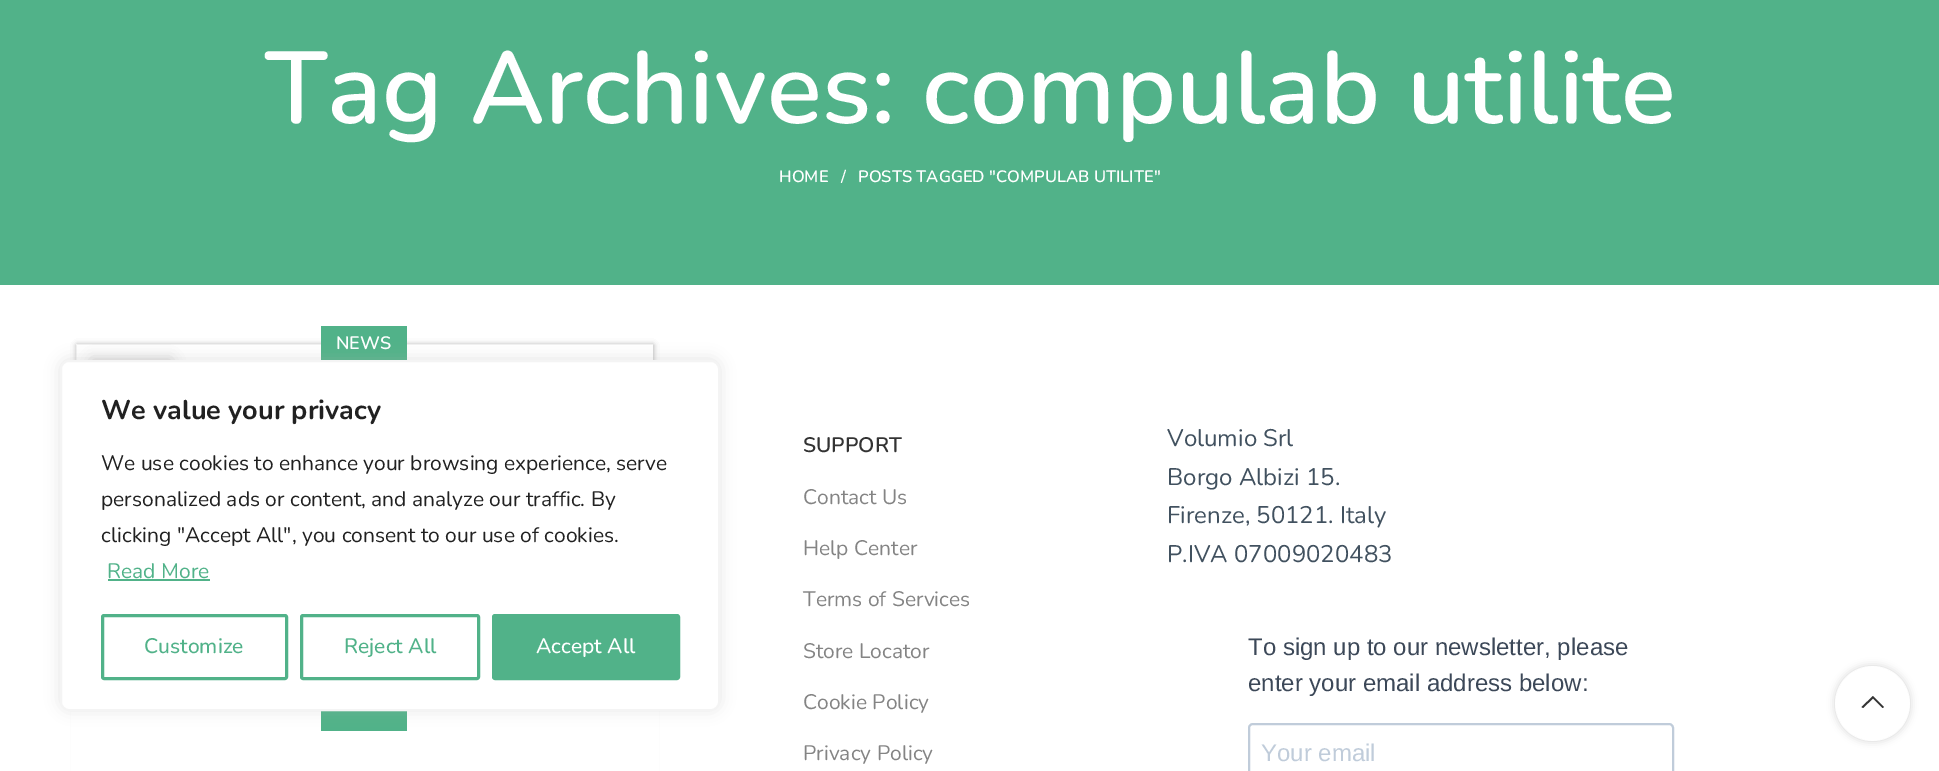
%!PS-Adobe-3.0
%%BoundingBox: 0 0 1939 771
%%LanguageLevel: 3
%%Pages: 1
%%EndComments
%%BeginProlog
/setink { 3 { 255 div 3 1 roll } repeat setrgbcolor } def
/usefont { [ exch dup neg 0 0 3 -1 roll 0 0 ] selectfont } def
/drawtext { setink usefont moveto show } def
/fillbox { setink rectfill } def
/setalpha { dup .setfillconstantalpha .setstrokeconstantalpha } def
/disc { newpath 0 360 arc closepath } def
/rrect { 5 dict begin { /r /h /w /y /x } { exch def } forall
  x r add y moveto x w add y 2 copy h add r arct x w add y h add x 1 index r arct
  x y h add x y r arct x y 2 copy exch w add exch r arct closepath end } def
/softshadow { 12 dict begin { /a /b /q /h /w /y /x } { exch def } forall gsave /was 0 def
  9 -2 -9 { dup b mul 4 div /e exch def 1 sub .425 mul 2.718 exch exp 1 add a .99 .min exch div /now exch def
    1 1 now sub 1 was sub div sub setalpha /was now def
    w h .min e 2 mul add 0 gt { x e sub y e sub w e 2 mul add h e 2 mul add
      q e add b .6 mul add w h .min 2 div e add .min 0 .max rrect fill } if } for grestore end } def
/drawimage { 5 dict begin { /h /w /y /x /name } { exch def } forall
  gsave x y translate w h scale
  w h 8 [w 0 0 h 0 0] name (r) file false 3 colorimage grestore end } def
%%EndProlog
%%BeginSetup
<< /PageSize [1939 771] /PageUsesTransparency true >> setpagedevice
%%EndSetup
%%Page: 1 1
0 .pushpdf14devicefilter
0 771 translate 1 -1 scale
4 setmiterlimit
0 0 1939 771 255 255 255 fillbox
0 0 1939 285 81 178 137 fillbox
(Tag Archives: compulab utilite) 265 123 /Nunito-SemiBold 102 255 255 255 drawtext
(HOME) 779 182 /Nunito-SemiBold 16.5 255 255 255 drawtext
(/) 841 182 /Nunito-SemiBold 16.5 255 255 255 drawtext
(POSTS TAGGED "COMPULAB UTILITE") 858 182 /Nunito-SemiBold 16.5 255 255 255 drawtext
0 0 0 setink
77 345 576 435 0 3 0.12 softshadow
77 345 576 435 0 3 0.12 softshadow
(assets/img1.rgb) 76 344 577 16 drawimage
77 345 576 347 0 3 0.12 softshadow
77 345 576 15 255 255 255 fillbox
71 407 588 364 255 255 255 fillbox
0 0 0 setink
92 360 79 84 0 7 0.1 softshadow
92 360 79 84 0 7 0.1 softshadow
321 711 86 20 81 178 137 fillbox
321 326 86 34 81 178 137 fillbox
(NEWS) 336 349 /Nunito-SemiBold 18 255 255 255 drawtext
(SUPPORT) 803 452 /Nunito-SemiBold 21 51 51 51 drawtext
(Contact Us) 803 504 /Nunito-Regular 21 132 132 132 drawtext
(Help Center) 803 555 /Nunito-Regular 21 132 132 132 drawtext
(Terms of Services) 803 606 /Nunito-Regular 21 132 132 132 drawtext
(Store Locator) 803 658 /Nunito-Regular 21 132 132 132 drawtext
(Cookie Policy) 803 709 /Nunito-Regular 21 132 132 132 drawtext
(Privacy Policy) 803 760 /Nunito-Regular 21 132 132 132 drawtext
(Volumio Srl) 1167 446 /Nunito-Regular 24 65 81 95 drawtext
(Borgo Albizi 15.) 1167 485 /Nunito-Regular 24 65 81 95 drawtext
(Firenze, 50121. Italy) 1167 523 /Nunito-Regular 24 65 81 95 drawtext
(P.IVA 07009020483) 1167 562 /Nunito-Regular 24 65 81 95 drawtext
(To sign up to our newsletter, please) 1248 655 /LiberationSans-Regular 24 60 72 88 drawtext
(enter your email address below:) 1248 691 /LiberationSans-Regular 24 60 72 88 drawtext
192 204 218 setink
2 setlinewidth
1249 724 424 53 4 rrect stroke
(Your email) 1261 761 /LiberationSans-Regular 24 192 204 218 drawtext
172 171 171 setink
60 359 660 351 9 7.5 0.3 softshadow
255 255 255 setink
61 361 658 349 8 rrect gsave fill grestore
244 244 244 setink
stroke
(We value your privacy) 101 419 /Nunito-Bold 27 33 33 33 drawtext
(We use cookies to enhance your browsing experience, serve) 101 470 /Nunito-Regular 21 33 33 33 drawtext
(personalized ads or content, and analyze our traffic. By) 101 506 /Nunito-Regular 21 33 33 33 drawtext
(clicking "Accept All", you consent to our use of cookies.) 101 542 /Nunito-Regular 21 33 33 33 drawtext
(Read More) 107 578 /Nunito-Regular 21 81 178 137 drawtext
108 579 102 2 81 178 137 fillbox
3 setlinewidth
102.5 615.5 184 63 1.5 rrect stroke
(Customize) 144 653 /Nunito-Medium 21 81 178 137 drawtext
301.5 615.5 177 63 1.5 rrect stroke
(Reject All) 344 653 /Nunito-Medium 21 81 178 137 drawtext
493.5 615.5 185 63 1.5 rrect gsave fill grestore
stroke
(Accept All) 536 653 /Nunito-Medium 21 255 255 255 drawtext
gsave
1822 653 moveto 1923 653 lineto 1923 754 lineto 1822 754 lineto closepath 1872.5 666 moveto 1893 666 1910 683 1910 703.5 curveto 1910 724 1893 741 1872.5 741 curveto 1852 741 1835 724 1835 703.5 curveto 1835 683 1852 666 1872.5 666 curveto closepath eoclip newpath
0 0 0 setink
1835 666 75 75 37.5 4 0.17 softshadow
grestore
0.9 setalpha
1872.5 703.5 37.5 disc fill
1 setalpha
51 51 51 setink
1882.5 708 moveto 1884 707 lineto 1873 696 lineto 1861.5 707 lineto 1863 708 lineto 1873 698.5 lineto closepath fill
.poppdf14devicefilter showpage
%%EOF
